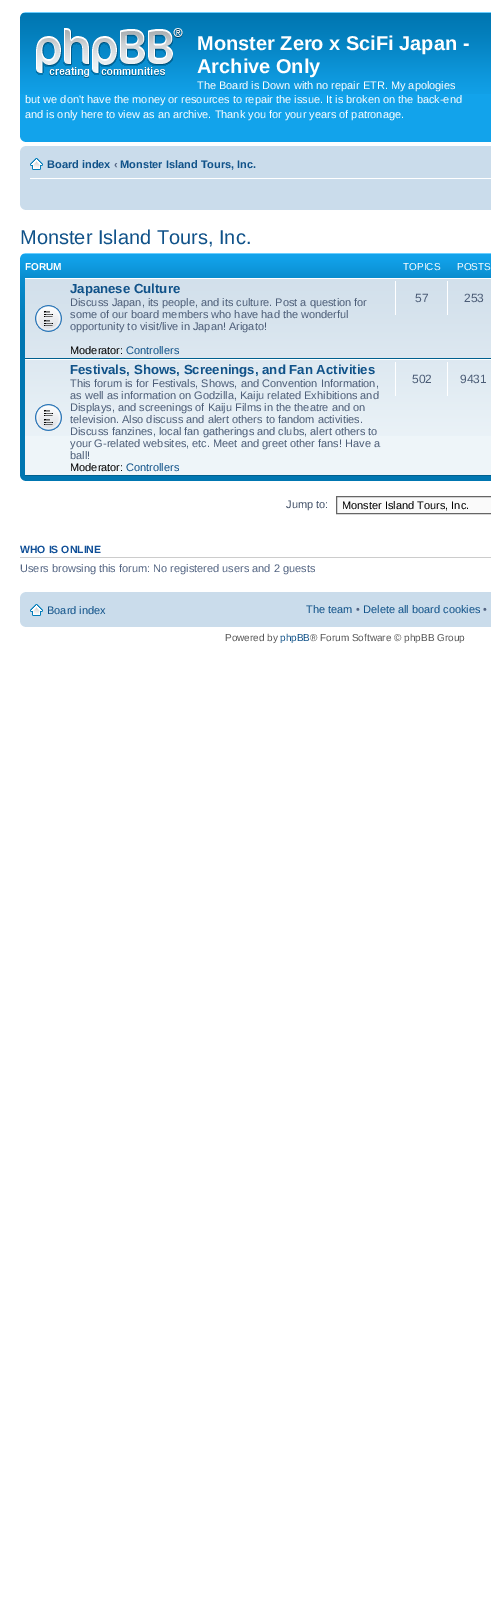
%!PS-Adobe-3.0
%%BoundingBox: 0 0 491 1601
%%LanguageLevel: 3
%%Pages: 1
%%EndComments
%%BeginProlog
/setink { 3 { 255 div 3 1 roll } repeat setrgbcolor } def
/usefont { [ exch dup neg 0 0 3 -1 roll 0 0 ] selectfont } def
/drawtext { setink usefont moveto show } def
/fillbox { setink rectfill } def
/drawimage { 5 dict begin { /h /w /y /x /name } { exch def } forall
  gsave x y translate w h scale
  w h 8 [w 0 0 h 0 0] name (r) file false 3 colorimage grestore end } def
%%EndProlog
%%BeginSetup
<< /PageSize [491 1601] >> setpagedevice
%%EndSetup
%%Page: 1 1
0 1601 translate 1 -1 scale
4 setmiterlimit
0 0 491 1601 255 255 255 fillbox
20 94 471 48 18 163 235 fillbox
(assets/img1.rgb) 20 12 471 82 drawimage
(assets/img2.rgb) 20 12 5 5 drawimage
(assets/img3.rgb) 36 28 147 50 drawimage
(Monster Zero x SciFi Japan -) 197 50 /LiberationSans-Bold 20 255 255 255 drawtext
(Archive Only) 197 73 /LiberationSans-Bold 20 255 255 255 drawtext
(The Board is Down with no repair ETR. My apologies) 197 89 /LiberationSans-Regular 11 255 255 255 drawtext
(but we don't have the money or resources to repair the issue. It is broken on the back-end) 25 103 /LiberationSans-Regular 11 255 255 255 drawtext
(and is only here to view as an archive. Thank you for your years of patronage.) 25 118 /LiberationSans-Regular 11 255 255 255 drawtext
(assets/img4.rgb) 20 137 5 5 drawimage
20 146 471 64 202 220 235 fillbox
(assets/img5.rgb) 20 146 5 5 drawimage
30 178 461 1 255 255 255 fillbox
(assets/img6.rgb) 30 158 13 12 drawimage
(Board index) 47 168 /LiberationSans-Bold 11 16 82 137 drawtext
(‹) 114 168 /LiberationSans-Bold 11 83 100 130 drawtext
(Monster Island Tours, Inc.) 120 168 /LiberationSans-Bold 11 16 82 137 drawtext
(assets/img7.rgb) 20 205 5 5 drawimage
(Monster Island Tours, Inc.) 20 244 /LiberationSans-Regular 20 16 82 137 drawtext
20 330 471 151 0 118 177 fillbox
(assets/img8.rgb) 20 253 471 77 drawimage
(assets/img9.rgb) 20 253 5 5 drawimage
(FORUM) 25 270 /LiberationSans-Bold 10 255 255 255 drawtext
(TOPICS) 403 270 /LiberationSans-Regular 10 255 255 255 drawtext
(POSTS) 457 270 /LiberationSans-Regular 10 255 255 255 drawtext
25 436 466 39 238 245 249 fillbox
(assets/img10.rgb) 25 279 466 157 drawimage
25 278 466 1 255 255 255 fillbox
25 358 466 1 0 96 143 fillbox
(assets/img11.rgb) 35 305 27 27 drawimage
(Japanese Culture) 70 293 /LiberationSans-Bold 13.2 16 82 137 drawtext
(Discuss Japan, its people, and its culture. Post a question for) 70 306 /LiberationSans-Regular 11 76 93 119 drawtext
(some of our board members who have had the wonderful) 70 318 /LiberationSans-Regular 11 76 93 119 drawtext
(opportunity to visit/live in Japan! Arigato!) 70 330 /LiberationSans-Regular 11 76 93 119 drawtext
(Moderator:) 70 354 /LiberationSans-Regular 11 0 0 0 drawtext
(Controllers) 126 354 /LiberationSans-Regular 11 16 82 137 drawtext
395 281 1 34 255 255 255 fillbox
(57) 415 302 /LiberationSans-Regular 12 76 93 119 drawtext
447 281 1 34 255 255 255 fillbox
(253) 464 302 /LiberationSans-Regular 12 76 93 119 drawtext
25 359 466 1 255 255 255 fillbox
25 475 466 1 0 96 143 fillbox
(assets/img12.rgb) 35 404 27 27 drawimage
(Festivals, Shows, Screenings, and Fan Activities) 70 374 /LiberationSans-Bold 13.2 16 82 137 drawtext
(This forum is for Festivals, Shows, and Convention Information,) 70 387 /LiberationSans-Regular 11 76 93 119 drawtext
(as well as information on Godzilla, Kaiju related Exhibitions and) 70 399 /LiberationSans-Regular 11 76 93 119 drawtext
(Displays, and screenings of Kaiju Films in the theatre and on) 70 411 /LiberationSans-Regular 11 76 93 119 drawtext
(television. Also discuss and alert others to fandom activities.) 70 423 /LiberationSans-Regular 11 76 93 119 drawtext
(Discuss fanzines, local fan gatherings and clubs, alert others to) 70 435 /LiberationSans-Regular 11 76 93 119 drawtext
(your G-related websites, etc. Meet and greet other fans! Have a) 70 447 /LiberationSans-Regular 11 76 93 119 drawtext
(ball!) 70 459 /LiberationSans-Regular 11 76 93 119 drawtext
(Moderator:) 70 471 /LiberationSans-Regular 11 0 0 0 drawtext
(Controllers) 126 471 /LiberationSans-Regular 11 16 82 137 drawtext
395 362 1 34 255 255 255 fillbox
(502) 412 383 /LiberationSans-Regular 12 76 93 119 drawtext
447 362 1 34 255 255 255 fillbox
(9431) 460 383 /LiberationSans-Regular 12 76 93 119 drawtext
(assets/img13.rgb) 20 476 5 5 drawimage
(Jump to:) 286 508 /LiberationSans-Regular 11 66 80 103 drawtext
250 250 250 setink
336.5 496.5 moveto 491.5 496.5 lineto 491.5 513.5 lineto 336.5 513.5 lineto closepath gsave fill grestore
102 102 102 setink
stroke
(Monster Island Tours, Inc.) 342 509 /LiberationSans-Regular 11 0 0 0 drawtext
20 557 471 1 204 204 204 fillbox
(WHO IS ONLINE) 20 553 /LiberationSans-Bold 10.5 17 80 152 drawtext
(Users browsing this forum: No registered users and 2 guests) 20 572 /LiberationSans-Regular 11 83 100 130 drawtext
20 592 471 35 202 220 235 fillbox
(assets/img5.rgb) 20 592 5 5 drawimage
(assets/img6.rgb) 30 604 13 12 drawimage
(Board index) 47 614 /LiberationSans-Regular 11 16 82 137 drawtext
(The team) 306 613 /LiberationSans-Regular 11 16 82 137 drawtext
(•) 356 613 /LiberationSans-Regular 11 83 100 130 drawtext
(Delete all board cookies) 363 613 /LiberationSans-Regular 11 16 82 137 drawtext
(•) 483 613 /LiberationSans-Regular 11 83 100 130 drawtext
(assets/img7.rgb) 20 622 5 5 drawimage
(Powered by) 225 641 /LiberationSans-Regular 10 85 85 85 drawtext
(phpBB) 280 641 /LiberationSans-Regular 10 16 82 137 drawtext
(® Forum Software © phpBB Group) 310 641 /LiberationSans-Regular 10 85 85 85 drawtext
showpage
%%EOF
